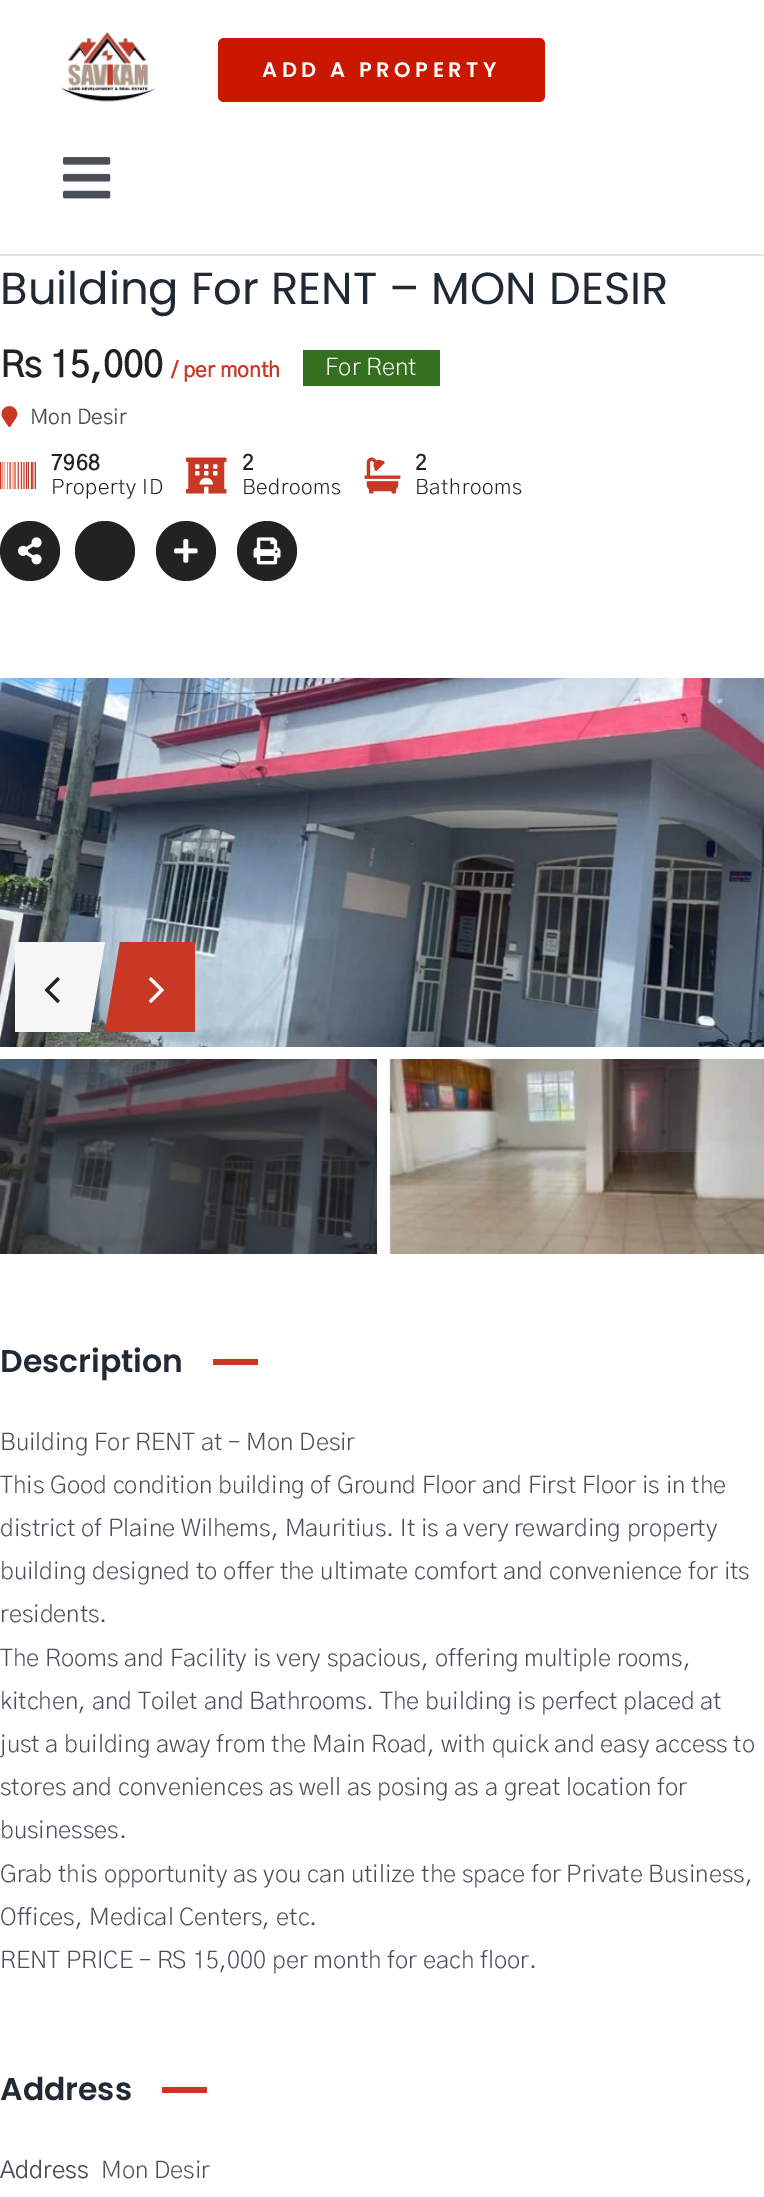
%!PS-Adobe-3.0
%%BoundingBox: 0 0 764 2197
%%LanguageLevel: 3
%%Pages: 1
%%EndComments
%%BeginProlog
/setink { 3 { 255 div 3 1 roll } repeat setrgbcolor } def
/usefont { [ exch dup neg 0 0 3 -1 roll 0 0 ] selectfont } def
/drawtext { setink usefont moveto show } def
/fillbox { setink rectfill } def
/disc { newpath 0 360 arc closepath } def
/rrect { 5 dict begin { /r /h /w /y /x } { exch def } forall
  x r add y moveto x w add y 2 copy h add r arct x w add y h add x 1 index r arct
  x y h add x y r arct x y 2 copy exch w add exch r arct closepath end } def
/drawimage { 5 dict begin { /h /w /y /x /name } { exch def } forall
  gsave x y translate w h scale
  w h 8 [w 0 0 h 0 0] name (r) file false 3 colorimage grestore end } def
%%EndProlog
%%BeginSetup
<< /PageSize [764 2197] >> setpagedevice
%%EndSetup
%%Page: 1 1
0 2197 translate 1 -1 scale
4 setmiterlimit
0 0 764 2197 255 255 255 fillbox
0 254 764 2 226 226 226 fillbox
(assets/img1.rgb) 61 32 95 70 drawimage
201 23 0 setink
218 38 327 64 6 rrect fill
/Poppins-SemiBold 21 usefont
255 255 255 setink
262 77 moveto 4.5 0 (ADD A PROPERTY) ashow
(assets/img2.rgb) 63 157 48 42 drawimage
(Building For RENT – MON DESIR) 0 304 /Poppins-Regular 44.9 33 41 52 drawtext
(Rs 15,000) 0 377 /GothicA1-Bold 36 34 34 34 drawtext
(/ per month) 171 377 /GothicA1-Bold 21 201 56 36 drawtext
303 350 137 36 52 112 32 fillbox
(For Rent) 325 375 /GothicA1-Light 24 255 255 255 drawtext
(assets/img3.rgb) 1 406 17 22 drawimage
(Mon Desir) 30 424 /GothicA1-Regular 21 74 78 87 drawtext
(assets/img4.rgb) 0 462 36 27 drawimage
/GothicA1-Bold 21 usefont
34 34 34 setink
51 470 moveto 0.6 0 (7968) ashow
/GothicA1-Light 21 usefont
51 494 moveto 0.6 0 (Property ID) ashow
(assets/img5.rgb) 186 457 41 37 drawimage
/GothicA1-Bold 21 usefont
242 470 moveto 0.6 0 (2) ashow
/GothicA1-Light 21 usefont
242 494 moveto 0.6 0 (Bedrooms) ashow
(assets/img6.rgb) 364 457 37 37 drawimage
/GothicA1-Bold 21 usefont
415 470 moveto 0.6 0 (2) ashow
/GothicA1-Light 21 usefont
415 494 moveto 0.6 0 (Bathrooms) ashow
30 551 30 disc fill
(assets/img7.rgb) 18 537 24 28 drawimage
105 551 30 disc fill
186 551 30 disc fill
(assets/img8.rgb) 174 539 24 24 drawimage
267 551 30 disc fill
(assets/img9.rgb) 253 537 28 28 drawimage
(assets/img10.rgb) 0 678 764 369 drawimage
15 942 75 90 246 246 246 fillbox
(assets/img11.rgb) 44 977 16 26 drawimage
90 942 moveto 105 942 lineto 90 1032 lineto closepath fill
120 942 75 90 201 56 36 fillbox
120 1032 moveto 105 1032 lineto 120 942 lineto closepath fill
(assets/img12.rgb) 148 977 16 26 drawimage
(assets/img13.rgb) 0 1059 377 195 drawimage
(assets/img14.rgb) 389 1059 375 195 drawimage
(Description) 0 1372 /Poppins-SemiBold 31.5 33 41 52 drawtext
213 1359 45 6 201 56 36 fillbox
(Building For RENT at – Mon Desir) 0 1450 /GothicA1-Light 24 74 78 87 drawtext
(This Good condition building of Ground Floor and First Floor is in the) 0 1493 /GothicA1-Light 24 74 78 87 drawtext
(district of Plaine Wilhems, Mauritius. It is a very rewarding property) 0 1536 /GothicA1-Light 24 74 78 87 drawtext
(building designed to offer the ultimate comfort and convenience for its) 0 1579 /GothicA1-Light 24 74 78 87 drawtext
(residents.) 0 1622 /GothicA1-Light 24 74 78 87 drawtext
(The Rooms and Facility is very spacious, offering multiple rooms,) 0 1666 /GothicA1-Light 24 74 78 87 drawtext
(kitchen, and Toilet and Bathrooms. The building is perfect placed at) 0 1709 /GothicA1-Light 24 74 78 87 drawtext
(just a building away from the Main Road, with quick and easy access to) 0 1752 /GothicA1-Light 24 74 78 87 drawtext
(stores and conveniences as well as posing as a great location for) 0 1795 /GothicA1-Light 24 74 78 87 drawtext
(businesses.) 0 1838 /GothicA1-Light 24 74 78 87 drawtext
(Grab this opportunity as you can utilize the space for Private Business,) 0 1882 /GothicA1-Light 24 74 78 87 drawtext
(Offices, Medical Centers, etc.) 0 1925 /GothicA1-Light 24 74 78 87 drawtext
(RENT PRICE – RS 15,000 per month for each floor.) 0 1968 /GothicA1-Light 24 74 78 87 drawtext
(Address) 0 2100 /Poppins-SemiBold 31.5 33 41 52 drawtext
162 2087 45 6 201 56 36 fillbox
(Address) 0 2178 /GothicA1-Regular 24 74 78 87 drawtext
(Mon Desir) 101 2178 /GothicA1-Light 24 74 78 87 drawtext
showpage
%%EOF
